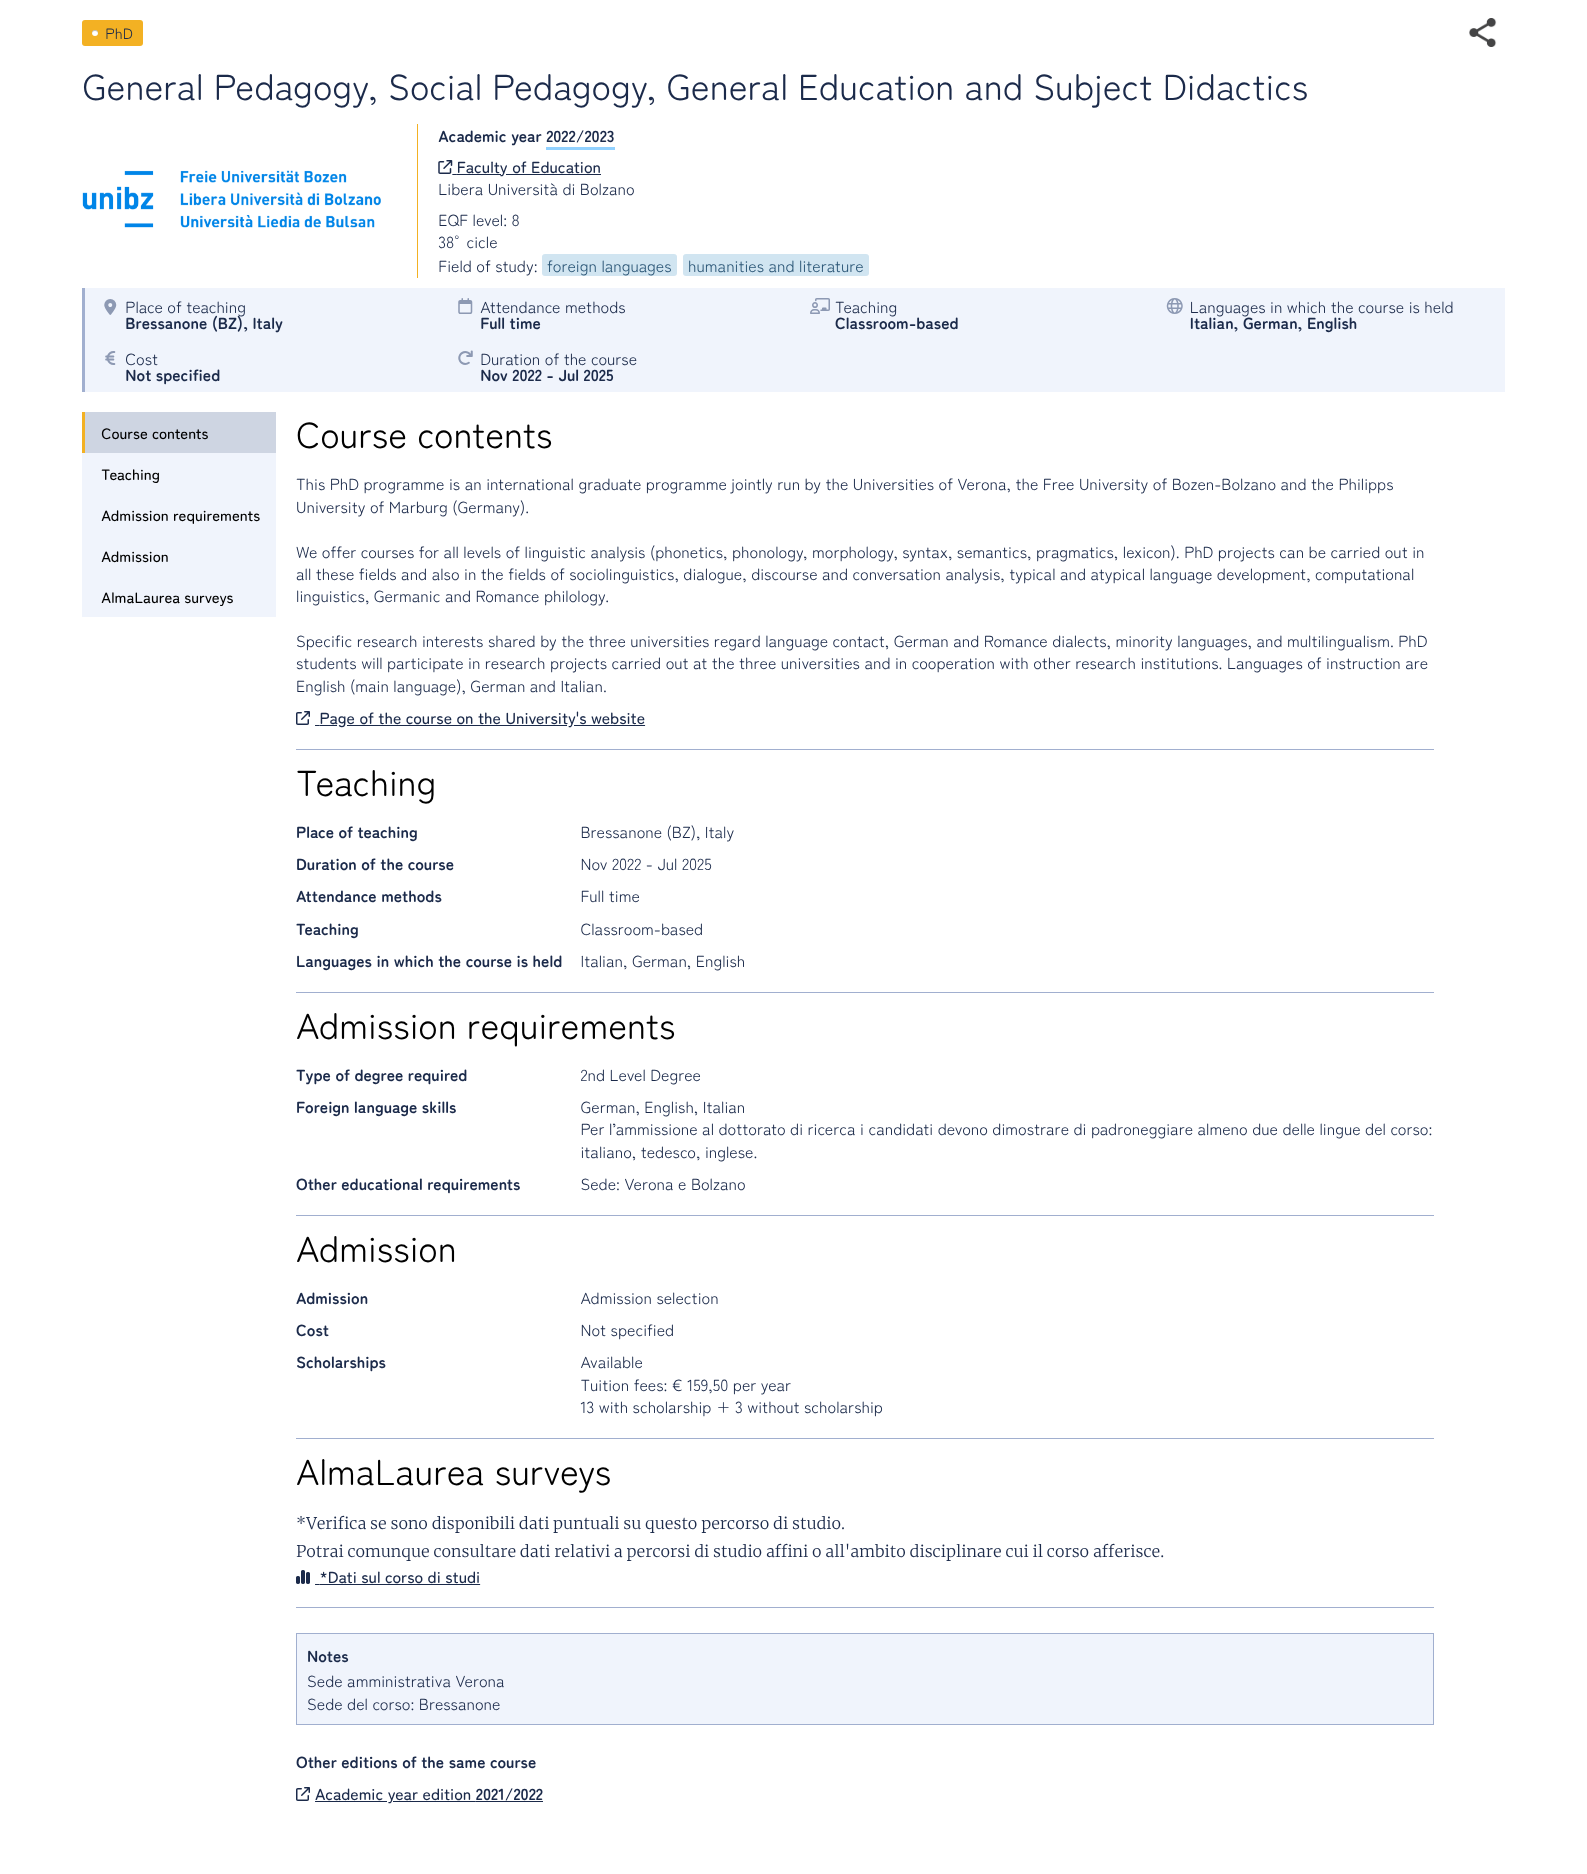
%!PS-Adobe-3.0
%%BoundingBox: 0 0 1587 1874
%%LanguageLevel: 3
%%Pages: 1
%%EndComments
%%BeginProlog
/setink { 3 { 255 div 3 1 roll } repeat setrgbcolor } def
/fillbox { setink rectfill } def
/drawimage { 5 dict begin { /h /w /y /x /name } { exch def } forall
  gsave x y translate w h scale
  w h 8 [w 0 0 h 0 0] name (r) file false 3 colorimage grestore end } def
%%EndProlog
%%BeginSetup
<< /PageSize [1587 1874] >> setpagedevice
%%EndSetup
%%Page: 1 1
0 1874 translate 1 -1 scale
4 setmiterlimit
0 0 1587 1874 255 255 255 fillbox
(assets/img1.rgb) 82 18 1423 1786 drawimage
showpage
%%EOF
